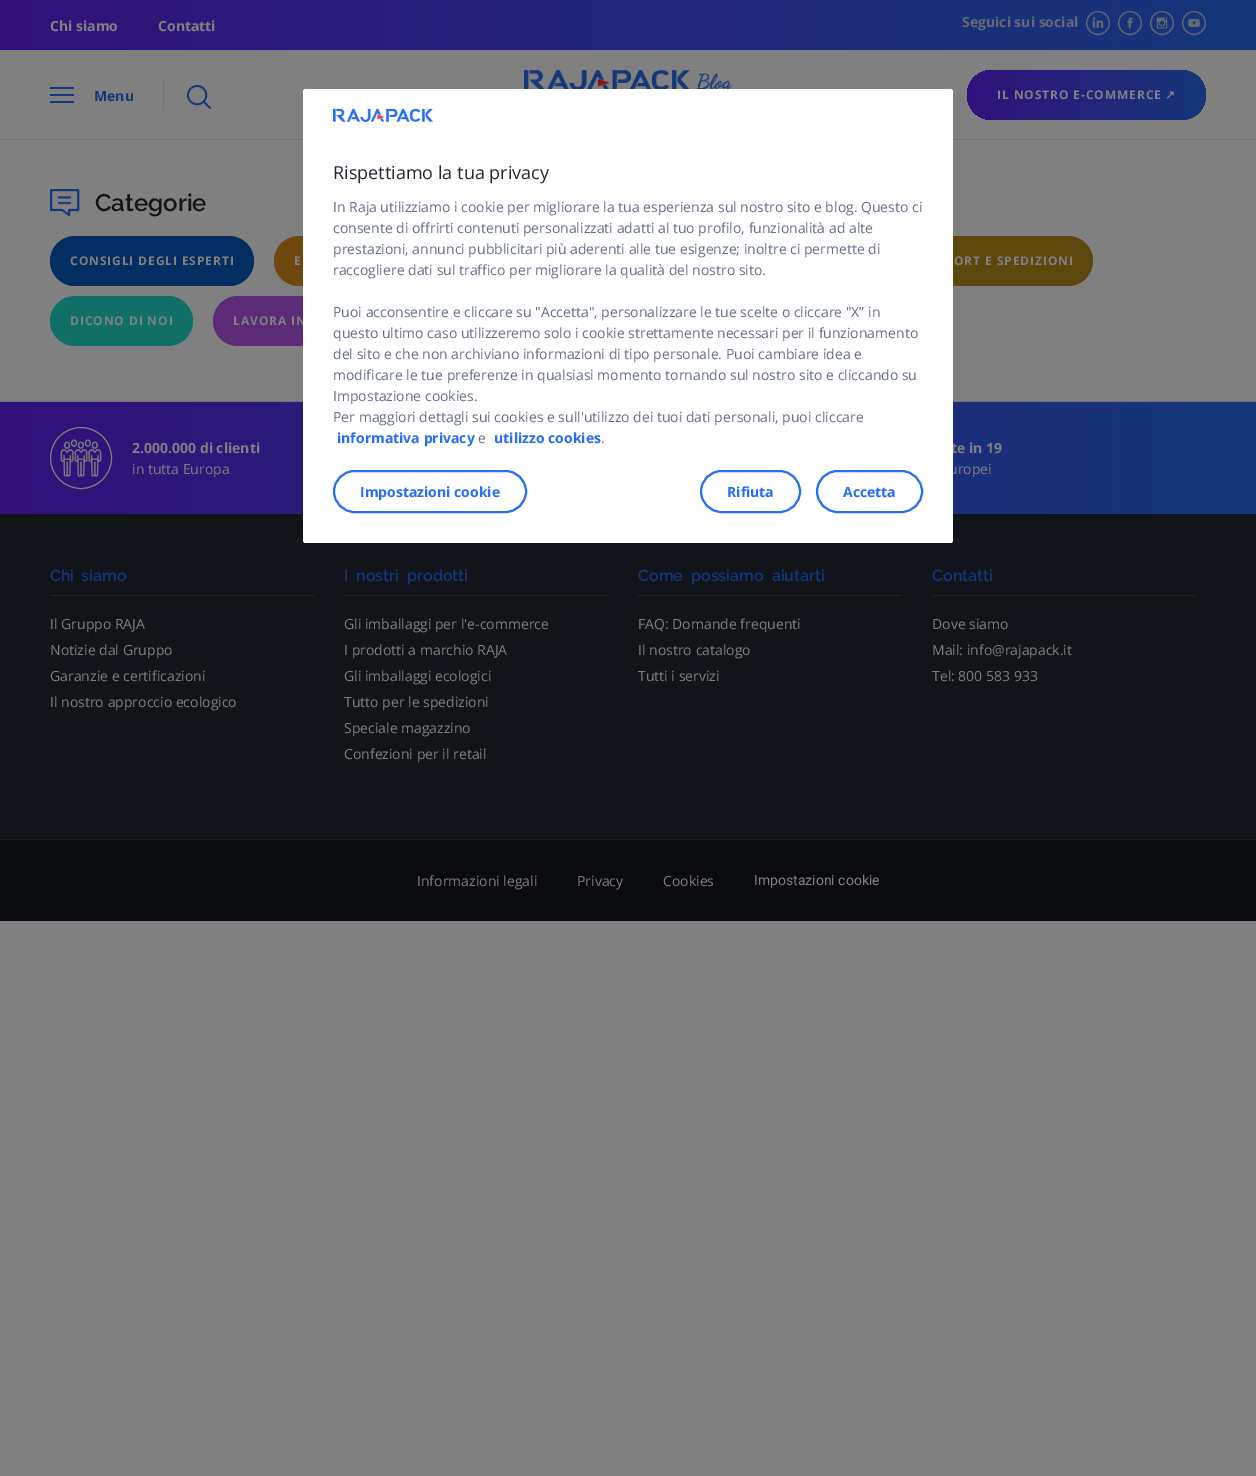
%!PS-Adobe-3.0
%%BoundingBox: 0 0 1256 1476
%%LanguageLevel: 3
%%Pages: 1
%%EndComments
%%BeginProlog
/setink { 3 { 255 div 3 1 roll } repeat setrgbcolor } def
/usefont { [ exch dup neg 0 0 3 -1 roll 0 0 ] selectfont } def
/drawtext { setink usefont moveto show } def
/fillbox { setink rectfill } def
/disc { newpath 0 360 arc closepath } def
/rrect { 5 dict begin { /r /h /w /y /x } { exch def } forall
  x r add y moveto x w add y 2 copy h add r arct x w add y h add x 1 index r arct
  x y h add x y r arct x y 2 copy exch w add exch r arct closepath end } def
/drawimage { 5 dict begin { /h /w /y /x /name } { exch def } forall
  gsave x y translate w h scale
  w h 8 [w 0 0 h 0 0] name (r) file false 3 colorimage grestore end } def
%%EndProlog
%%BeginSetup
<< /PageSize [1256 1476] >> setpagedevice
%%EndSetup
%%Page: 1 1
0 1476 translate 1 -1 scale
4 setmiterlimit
0 0 1256 1476 128 128 128 fillbox
gsave 0 0 moveto 1256 0 lineto 1256 50 lineto 0 50 lineto closepath clip newpath
<< /ShadingType 2 /ColorSpace /DeviceRGB /Coords [0 25 1256 25] /Extend [true true] /Function << /FunctionType 2 /Domain [0 1] /C0 [0.192 0.067 0.482] /C1 [0.078 0.216 0.475] /N 1 >> >> shfill grestore
(Chi siamo) 50 31 /OpenSans-Bold 14 128 128 128 drawtext
(Contatti) 158 31 /OpenSans-Bold 14 128 128 128 drawtext
(Seguici sui social) 962 27 /OpenSans-Bold 14 98 106 118 drawtext
(assets/img1.rgb) 1086 11 24 24 drawimage
(assets/img2.rgb) 1118 11 24 24 drawimage
(assets/img3.rgb) 1150 11 24 24 drawimage
(assets/img4.rgb) 1182 11 24 24 drawimage
0 139 1256 1 112 114 117 fillbox
(assets/img5.rgb) 524 70 208 19 drawimage
50 87 24 2 20 55 121 fillbox
50 94 24 2 20 55 121 fillbox
50 101 24 2 20 55 121 fillbox
(Menu) 94 101 /OpenSans-Bold 14 20 55 121 drawtext
163 80 1 30 112 114 117 fillbox
(assets/img6.rgb) 187 85 24 24 drawimage
gsave 967 70 239 50 25 rrect clip newpath
<< /ShadingType 2 /ColorSpace /DeviceRGB /Coords [967 95 1206 95] /Extend [true true] /Function << /FunctionType 2 /Domain [0 1] /C0 [0.192 0.067 0.482] /C1 [0.078 0.216 0.475] /N 1 >> >> shfill grestore
/OpenSans-Bold 12 usefont
128 128 128 setink
997 99 moveto 0.9 0 (IL NOSTRO E-COMMERCE) ashow
/DejaVuSans-Bold 12 usefont
1165 99 moveto 0.9 0 (↗) ashow
0 401 1256 1 112 114 117 fillbox
111 72 13 setink
274 236 128 50 25 rrect fill
92 71 13 setink
909 236 184 50 25 rrect fill
93 42 119 setink
213 296 150 50 25 rrect fill
/OpenSans-Bold 12 usefont
128 128 128 setink
233 325 moveto 0.9 0 (LAVORA IN) ashow
gsave 0 402 moveto 1256 402 lineto 1256 514 lineto 0 514 lineto closepath clip newpath
<< /ShadingType 2 /ColorSpace /DeviceRGB /Coords [0 458 1256 458] /Extend [true true] /Function << /FunctionType 2 /Domain [0 1] /C0 [0.192 0.067 0.482] /C1 [0.078 0.216 0.475] /N 1 >> >> shfill grestore
(te in 19) 951 453 /OpenSans-Bold 14 128 128 128 drawtext
(uropei) 949 474 /OpenSans-Regular 14 128 128 128 drawtext
0 514 1256 325 17 20 25 fillbox
255 255 255 setink
303 89 650 454 2.5 rrect fill
(assets/img7.rgb) 333 108 100 14 drawimage
(Rispettiamo la tua privacy) 333 179 /OpenSans-Regular 18 34 40 49 drawtext
(In Raja utilizziamo i cookie per migliorare la tua esperienza sul nostro sito e blog. Questo ci) 333 212 /OpenSans-Regular 14 101 111 132 drawtext
(consente di offrirti contenuti personalizzati adatti al tuo profilo, funzionalità ad alte) 333 233 /OpenSans-Regular 14 101 111 132 drawtext
(prestazioni, annunci pubblicitari più aderenti alle tue esigenze; inoltre ci permette di) 333 254 /OpenSans-Regular 14 101 111 132 drawtext
(raccogliere dati sul traffico per migliorare la qualità del nostro sito.) 333 275 /OpenSans-Regular 14 101 111 132 drawtext
(Puoi acconsentire e cliccare su "Accetta", personalizzare le tue scelte o cliccare "X” in) 333 317 /OpenSans-Regular 14 101 111 132 drawtext
(questo ultimo caso utilizzeremo solo i cookie strettamente necessari per il funzionamento) 333 338 /OpenSans-Regular 14 101 111 132 drawtext
(del sito e che non archiviano informazioni di tipo personale. Puoi cambiare idea e) 333 359 /OpenSans-Regular 14 101 111 132 drawtext
(modificare le tue preferenze in qualsiasi momento tornando sul nostro sito e cliccando su) 333 380 /OpenSans-Regular 14 101 111 132 drawtext
(Impostazione cookies.) 333 401 /OpenSans-Regular 14 101 111 132 drawtext
(Per maggiori dettagli sui cookies e sull'utilizzo dei tuoi dati personali, puoi cliccare) 333 422 /OpenSans-Regular 14 101 111 132 drawtext
(informativa privacy) 337 443 /OpenSans-Bold 14 39 110 241 drawtext
(e) 478 443 /OpenSans-Regular 14 101 111 132 drawtext
(utilizzo cookies) 494 443 /OpenSans-Bold 14 39 110 241 drawtext
(.) 601 443 /OpenSans-Regular 14 101 111 132 drawtext
39 110 241 setink
2 setlinewidth
334 471 192 41 20.5 rrect stroke
(Impostazioni cookie) 360 497 /OpenSans-Bold 14 39 110 241 drawtext
701 471 99 41 20.5 rrect stroke
(Rifiuta) 727 497 /OpenSans-Bold 14 39 110 241 drawtext
817 471 105 41 20.5 rrect stroke
(Accetta) 843 497 /OpenSans-Bold 14 39 110 241 drawtext
(assets/img8.rgb) 50 189 30 28 drawimage
(Categorie) 95 211 /Raleway-SemiBold 24 17 20 25 drawtext
2 46 97 setink
50 236 204 50 25 rrect fill
/OpenSans-Bold 12 usefont
128 128 128 setink
70 265 moveto 0.9 0 (CONSIGLI DEGLI ESPERTI) ashow
294 265 moveto 0.9 0 (E) ashow
954 265 moveto 0.9 0 (ORT E SPEDIZIONI) ashow
16 112 103 setink
50 296 143 50 25 rrect fill
128 128 128 setink
70 325 moveto 0.9 0 (DICONO DI NOI) ashow
1 setlinewidth
81 458 30.5 disc stroke
(assets/img9.rgb) 60 439 42 38 drawimage
(2.000.000 di clienti) 132 453 /OpenSans-Bold 14 128 128 128 drawtext
(in tutta Europa) 132 474 /OpenSans-Regular 14 128 128 128 drawtext
/Raleway-SemiBold 16 usefont
20 55 121 setink
50 581 moveto 3 0 32 (Chi siamo) widthshow
50 595 264 1 34 36 40 fillbox
(Il Gruppo RAJA) 50 629 /OpenSans-Regular 14 128 128 128 drawtext
(Notizie dal Gruppo) 50 655 /OpenSans-Regular 14 128 128 128 drawtext
(Garanzie e certificazioni) 50 681 /OpenSans-Regular 14 128 128 128 drawtext
(Il nostro approccio ecologico) 50 707 /OpenSans-Regular 14 128 128 128 drawtext
/Raleway-SemiBold 16 usefont
20 55 121 setink
344 581 moveto 4 0 32 (I nostri prodotti) widthshow
344 595 264 1 34 36 40 fillbox
(Gli imballaggi per l'e-commerce) 344 629 /OpenSans-Regular 14 128 128 128 drawtext
(I prodotti a marchio RAJA) 344 655 /OpenSans-Regular 14 128 128 128 drawtext
(Gli imballaggi ecologici) 344 681 /OpenSans-Regular 14 128 128 128 drawtext
(Tutto per le spedizioni) 344 707 /OpenSans-Regular 14 128 128 128 drawtext
(Speciale magazzino) 344 733 /OpenSans-Regular 14 128 128 128 drawtext
(Confezioni per il retail) 344 759 /OpenSans-Regular 14 128 128 128 drawtext
/Raleway-SemiBold 16 usefont
20 55 121 setink
638 581 moveto 4 0 32 (Come possiamo aiutarti) widthshow
638 595 264 1 34 36 40 fillbox
(FAQ: Domande frequenti) 638 629 /OpenSans-Regular 14 128 128 128 drawtext
(Il nostro catalogo) 638 655 /OpenSans-Regular 14 128 128 128 drawtext
(Tutti i servizi) 638 681 /OpenSans-Regular 14 128 128 128 drawtext
(Contatti) 932 581 /Raleway-SemiBold 16 20 55 121 drawtext
932 595 264 1 34 36 40 fillbox
(Dove siamo) 932 629 /OpenSans-Regular 14 128 128 128 drawtext
(Mail: info@rajapack.it) 932 655 /OpenSans-Regular 14 128 128 128 drawtext
(Tel: 800 583 933) 932 681 /OpenSans-Regular 14 128 128 128 drawtext
0 840 1256 81 9 11 14 fillbox
0 839 1256 1 27 29 31 fillbox
(Informazioni legali) 417 886 /OpenSans-Regular 14 128 128 128 drawtext
(Privacy) 577 886 /OpenSans-Regular 14 128 128 128 drawtext
(Cookies) 663 886 /OpenSans-Regular 14 128 128 128 drawtext
(Impostazioni cookie) 754 885 /Roboto-Regular 14 128 128 128 drawtext
showpage
%%EOF
